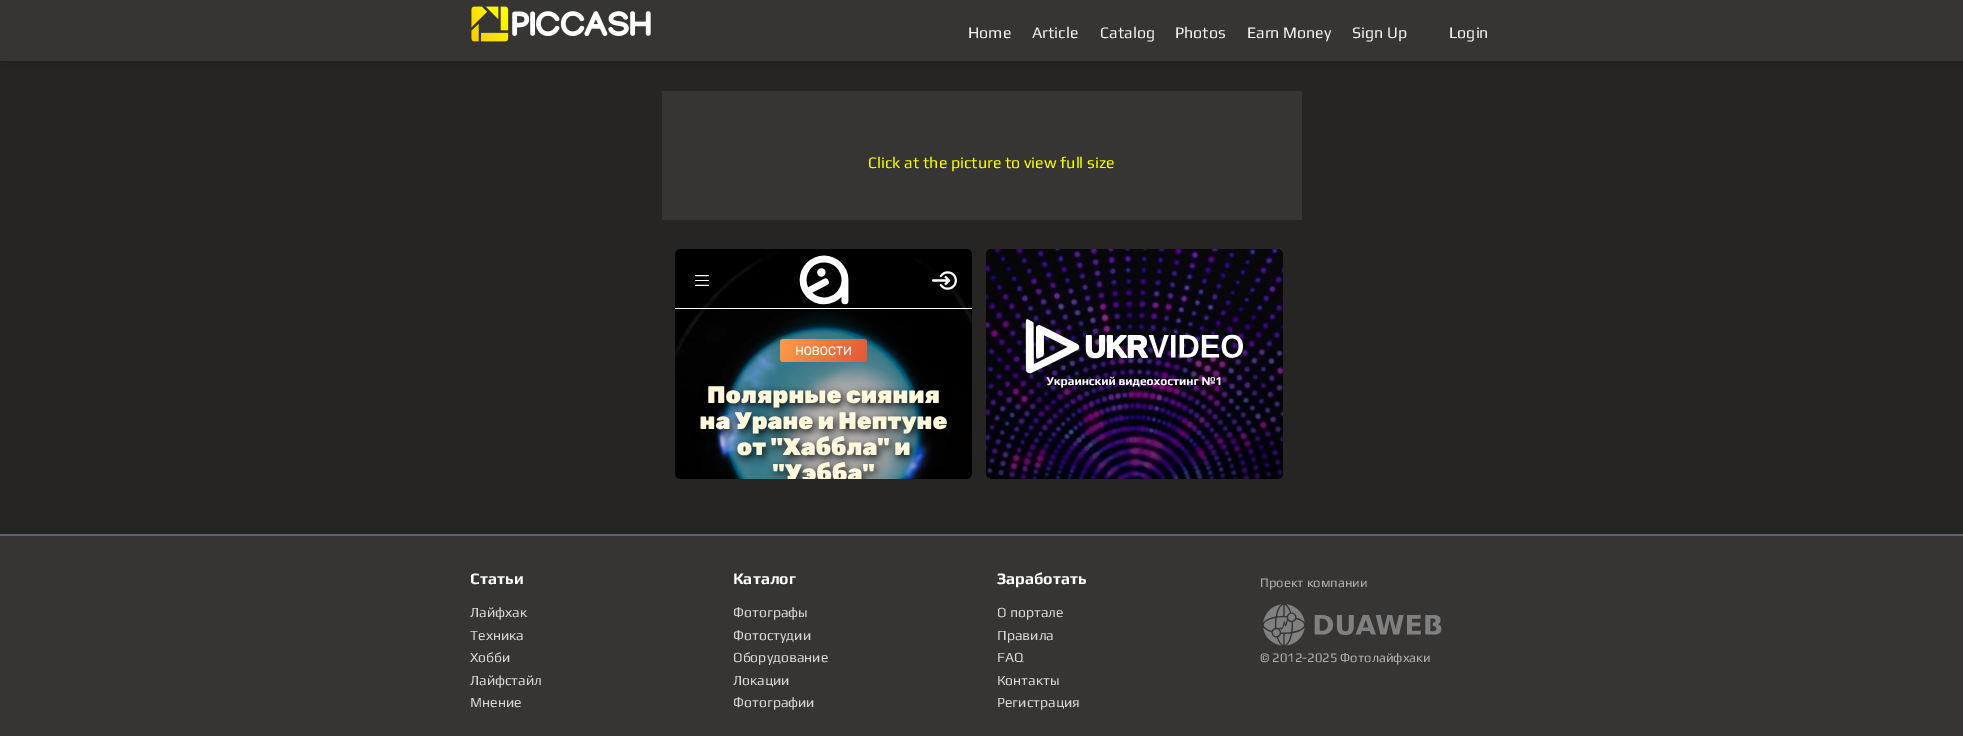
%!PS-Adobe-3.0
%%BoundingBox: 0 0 1963 736
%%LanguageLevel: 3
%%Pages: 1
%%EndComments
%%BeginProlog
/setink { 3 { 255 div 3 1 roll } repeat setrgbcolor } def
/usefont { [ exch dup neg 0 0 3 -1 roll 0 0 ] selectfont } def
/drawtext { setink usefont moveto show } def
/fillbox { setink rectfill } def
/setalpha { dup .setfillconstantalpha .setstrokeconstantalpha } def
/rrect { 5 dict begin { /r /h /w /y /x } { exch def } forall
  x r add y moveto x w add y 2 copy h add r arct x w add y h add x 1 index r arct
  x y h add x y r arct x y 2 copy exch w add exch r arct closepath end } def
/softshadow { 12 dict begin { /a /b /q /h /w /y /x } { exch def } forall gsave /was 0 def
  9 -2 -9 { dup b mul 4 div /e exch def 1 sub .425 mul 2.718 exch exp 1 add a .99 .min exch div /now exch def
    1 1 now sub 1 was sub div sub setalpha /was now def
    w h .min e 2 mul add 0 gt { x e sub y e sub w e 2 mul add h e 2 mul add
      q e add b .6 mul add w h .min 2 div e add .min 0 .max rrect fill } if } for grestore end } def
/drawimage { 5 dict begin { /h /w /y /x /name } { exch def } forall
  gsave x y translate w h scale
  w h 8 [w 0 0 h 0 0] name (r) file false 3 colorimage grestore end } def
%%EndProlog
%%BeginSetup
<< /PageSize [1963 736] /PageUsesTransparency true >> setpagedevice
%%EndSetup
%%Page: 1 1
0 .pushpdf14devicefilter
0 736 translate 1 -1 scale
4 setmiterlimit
0 0 1963 736 38 37 36 fillbox
0 0 0 setink
7 -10 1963 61 0 9.5 1 softshadow
0 0 1963 61 54 53 52 fillbox
(assets/img1.rgb) 471 6 180 36 drawimage
(Home) 968 38 /Play-Regular 16 242 242 242 drawtext
(Article) 1032 38 /Play-Regular 16 242 242 242 drawtext
(Catalog) 1100 38 /Play-Regular 16 242 242 242 drawtext
(Photos) 1175 38 /Play-Regular 16 242 242 242 drawtext
(Earn Money) 1247 38 /Play-Regular 16 242 242 242 drawtext
(Sign Up) 1352 38 /Play-Regular 16 242 242 242 drawtext
(Login) 1449 38 /Play-Regular 16 242 242 242 drawtext
662 91 640 129 54 53 52 fillbox
(Click at the picture to view full size) 868 168 /Play-Regular 16 251 255 0 drawtext
(assets/img2.rgb) 675 249 608 230 drawimage
0 536 1963 200 54 53 52 fillbox
0 534 1963 2 86 101 116 fillbox
(Статьи) 470 584 /Play-Bold 16 255 255 255 drawtext
(Лайфхак) 470 617 /Play-Regular 14 215 215 214 drawtext
(Техника) 470 640 /Play-Regular 14 215 215 214 drawtext
(Хобби) 470 662 /Play-Regular 14 215 215 214 drawtext
(Лайфстайл) 470 685 /Play-Regular 14 215 215 214 drawtext
(Мнение) 470 707 /Play-Regular 14 215 215 214 drawtext
(Каталог) 733 584 /Play-Bold 16 255 255 255 drawtext
(Фотографы) 733 617 /Play-Regular 14 215 215 214 drawtext
(Фотостудии) 733 640 /Play-Regular 14 215 215 214 drawtext
(Оборудование) 733 662 /Play-Regular 14 215 215 214 drawtext
(Локации) 733 685 /Play-Regular 14 215 215 214 drawtext
(Фотографии) 733 707 /Play-Regular 14 215 215 214 drawtext
(Заработать) 997 584 /Play-Bold 16 255 255 255 drawtext
(О портале) 997 617 /Play-Regular 14 215 215 214 drawtext
(Правила) 997 640 /Play-Regular 14 215 215 214 drawtext
(FAQ) 997 662 /Play-Regular 14 215 215 214 drawtext
(Контакты) 997 685 /Play-Regular 14 215 215 214 drawtext
(Регистрация) 997 707 /Play-Regular 14 215 215 214 drawtext
(Проект компании) 1260 587 /Play-Regular 13 175 174 174 drawtext
(assets/img3.rgb) 1263 604 179 42 drawimage
(© 2012-2025 Фотолайфхаки) 1260 662 /Play-Regular 13 175 174 174 drawtext
.poppdf14devicefilter showpage
%%EOF
